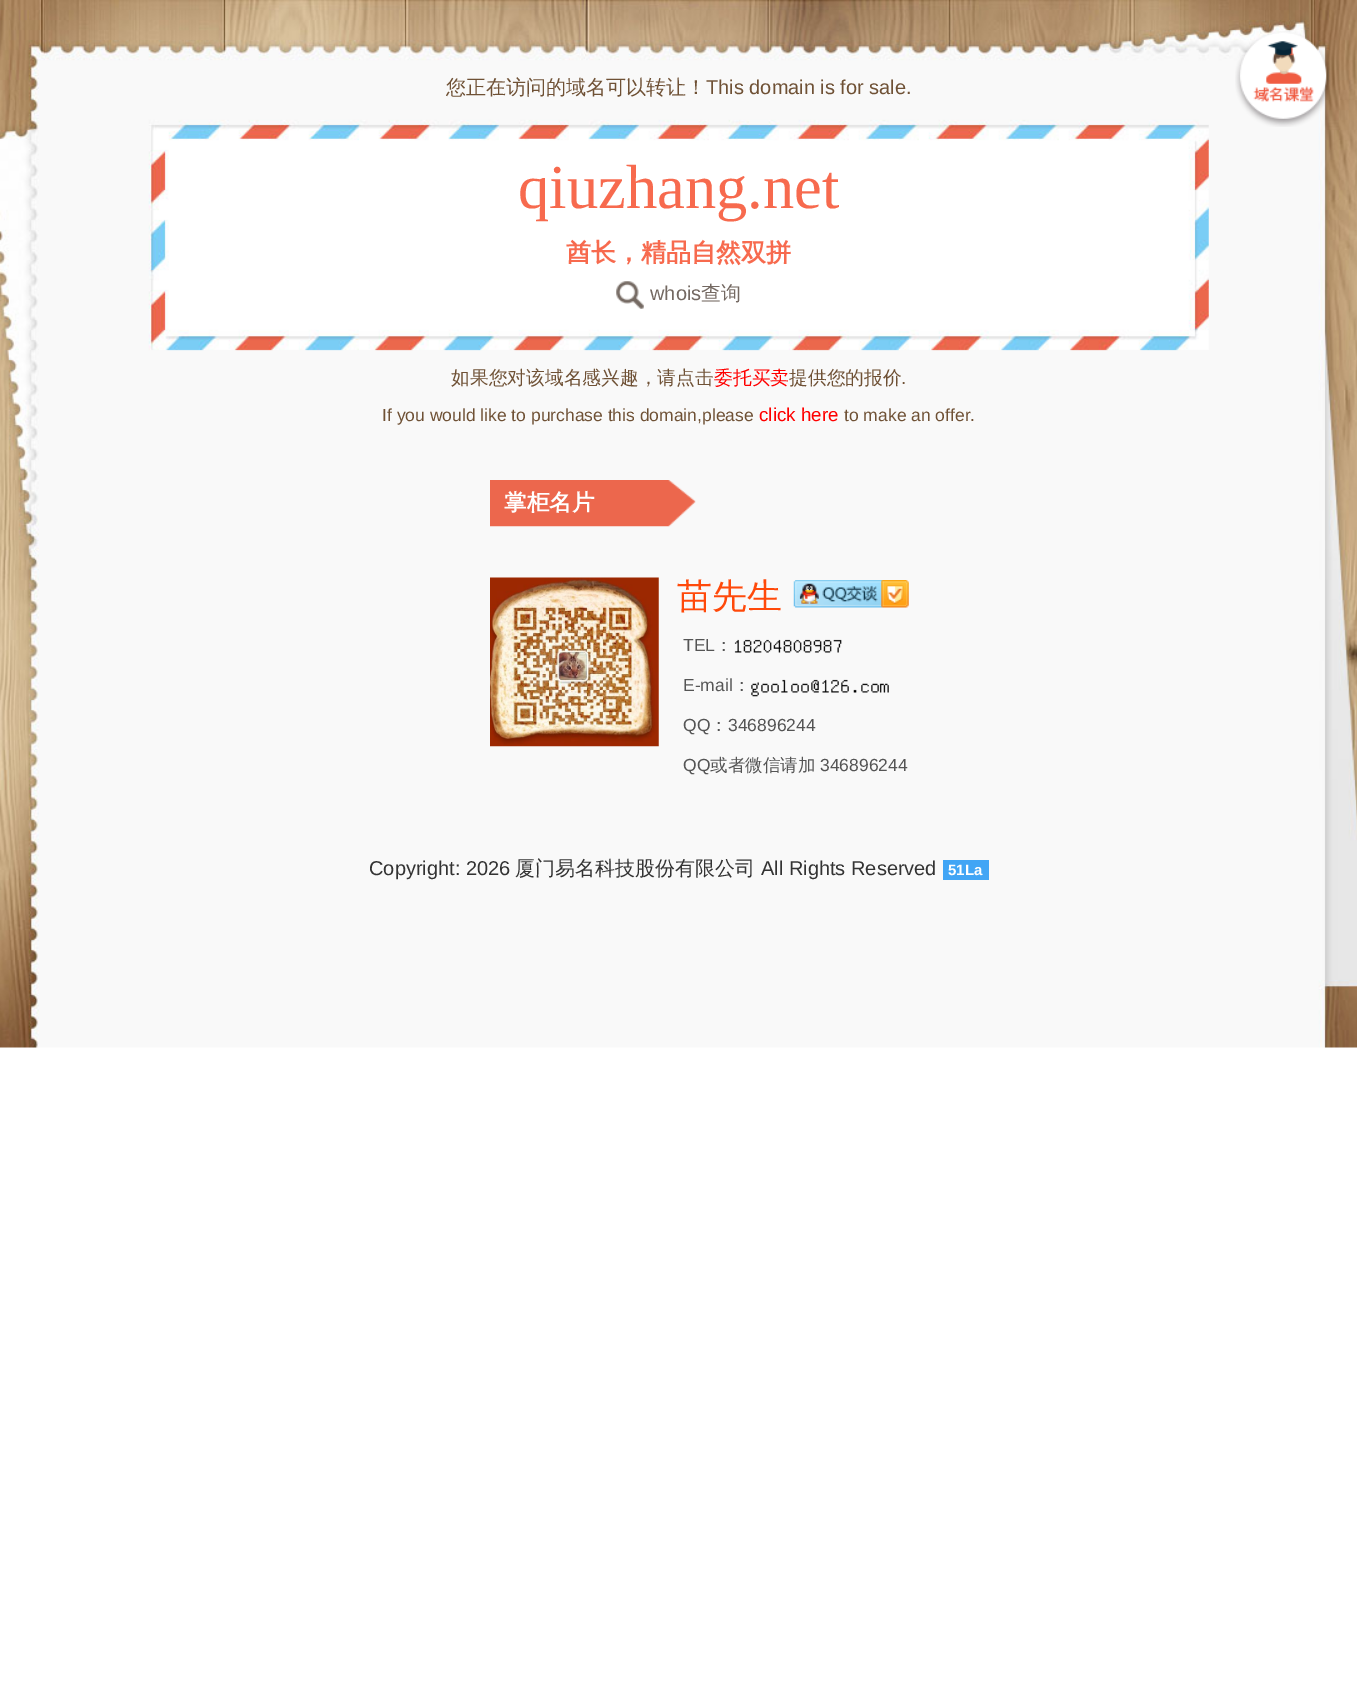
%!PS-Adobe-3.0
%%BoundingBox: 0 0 1357 1690
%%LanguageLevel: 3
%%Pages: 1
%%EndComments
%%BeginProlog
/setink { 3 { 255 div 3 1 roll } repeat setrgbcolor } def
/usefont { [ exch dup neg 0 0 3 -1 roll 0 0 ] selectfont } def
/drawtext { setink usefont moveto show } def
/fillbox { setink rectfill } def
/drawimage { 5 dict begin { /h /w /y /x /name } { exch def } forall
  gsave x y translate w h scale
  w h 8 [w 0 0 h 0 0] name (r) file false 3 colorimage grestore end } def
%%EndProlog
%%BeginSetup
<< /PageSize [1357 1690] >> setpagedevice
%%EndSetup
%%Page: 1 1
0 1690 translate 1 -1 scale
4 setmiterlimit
0 0 1357 1690 255 255 255 fillbox
(assets/img1.rgb) 0 0 1357 1048 drawimage
(您正在访问的域名可以转让！) 446 94 /WenQuanYiZenHei-Medium 20 111 81 53 drawtext
(This domain is for sale.) 706 94 /LiberationSans-Regular 20 111 81 53 drawtext
(qiuzhang.net) 518 208 /LiberationSerif-Regular 62.5 247 106 78 drawtext
(酋长，精品自然双拼) 566 261 /WenQuanYiZenHei-Bold 25 247 106 78 drawtext
(assets/img2.rgb) 616 281 28 28 drawimage
(whois) 650 300 /LiberationSans-Regular 20 116 105 98 drawtext
(查询) 701 300 /WenQuanYiZenHei-Medium 20 116 105 98 drawtext
(如果您对该域名感兴趣，请点击) 451 384 /WenQuanYiZenHei-Medium 18.75 111 81 53 drawtext
(委托买卖) 714 384 /WenQuanYiZenHei-Medium 18.75 255 0 0 drawtext
(提供您的报价) 789 384 /WenQuanYiZenHei-Medium 18.75 111 81 53 drawtext
(.) 901 384 /LiberationSans-Regular 18.75 111 81 53 drawtext
(If you would like to purchase this domain,please) 382 421 /LiberationSans-Regular 17.5 111 81 53 drawtext
(click here) 759 421 /LiberationSans-Regular 18.75 255 0 0 drawtext
(to make an offer.) 844 421 /LiberationSans-Regular 17.5 111 81 53 drawtext
(assets/img3.rgb) 490 480 206 47 drawimage
(掌柜名片) 504 510 /WenQuanYiZenHei-Bold 22.5 255 255 255 drawtext
(assets/img4.rgb) 490 577 169 170 drawimage
(苗先生) 677 608 /WenQuanYiZenHei-Medium 35 255 73 10 drawtext
(assets/img5.rgb) 793 580 116 28 drawimage
(TEL) 683 651 /LiberationSans-Regular 17.5 85 85 85 drawtext
(：) 715 651 /WenQuanYiZenHei-Medium 17.5 85 85 85 drawtext
(assets/img6.rgb) 734 639 108 14 drawimage
(E-mail) 683 691 /LiberationSans-Regular 17.5 85 85 85 drawtext
(：) 733 691 /WenQuanYiZenHei-Medium 17.5 85 85 85 drawtext
(assets/img7.rgb) 751 679 138 18 drawimage
(QQ) 683 731 /LiberationSans-Regular 17.5 85 85 85 drawtext
(：) 710 731 /WenQuanYiZenHei-Medium 17.5 85 85 85 drawtext
(346896244) 728 731 /LiberationSans-Regular 17.5 85 85 85 drawtext
(QQ) 683 771 /LiberationSans-Regular 17.5 85 85 85 drawtext
(或者微信请加) 710 771 /WenQuanYiZenHei-Medium 17.5 85 85 85 drawtext
(346896244) 820 771 /LiberationSans-Regular 17.5 85 85 85 drawtext
(Copyright: 2026) 369 875 /LiberationSans-Regular 20 51 51 51 drawtext
(厦门易名科技股份有限公司) 515 875 /WenQuanYiZenHei-Medium 20 51 51 51 drawtext
(All Rights Reserved) 761 875 /LiberationSans-Regular 20 51 51 51 drawtext
943 860 46 20 65 165 245 fillbox
(51La) 948 875 /LiberationSans-Bold 15 255 255 255 drawtext
(assets/img8.rgb) 1235 31 96 96 drawimage
showpage
%%EOF
